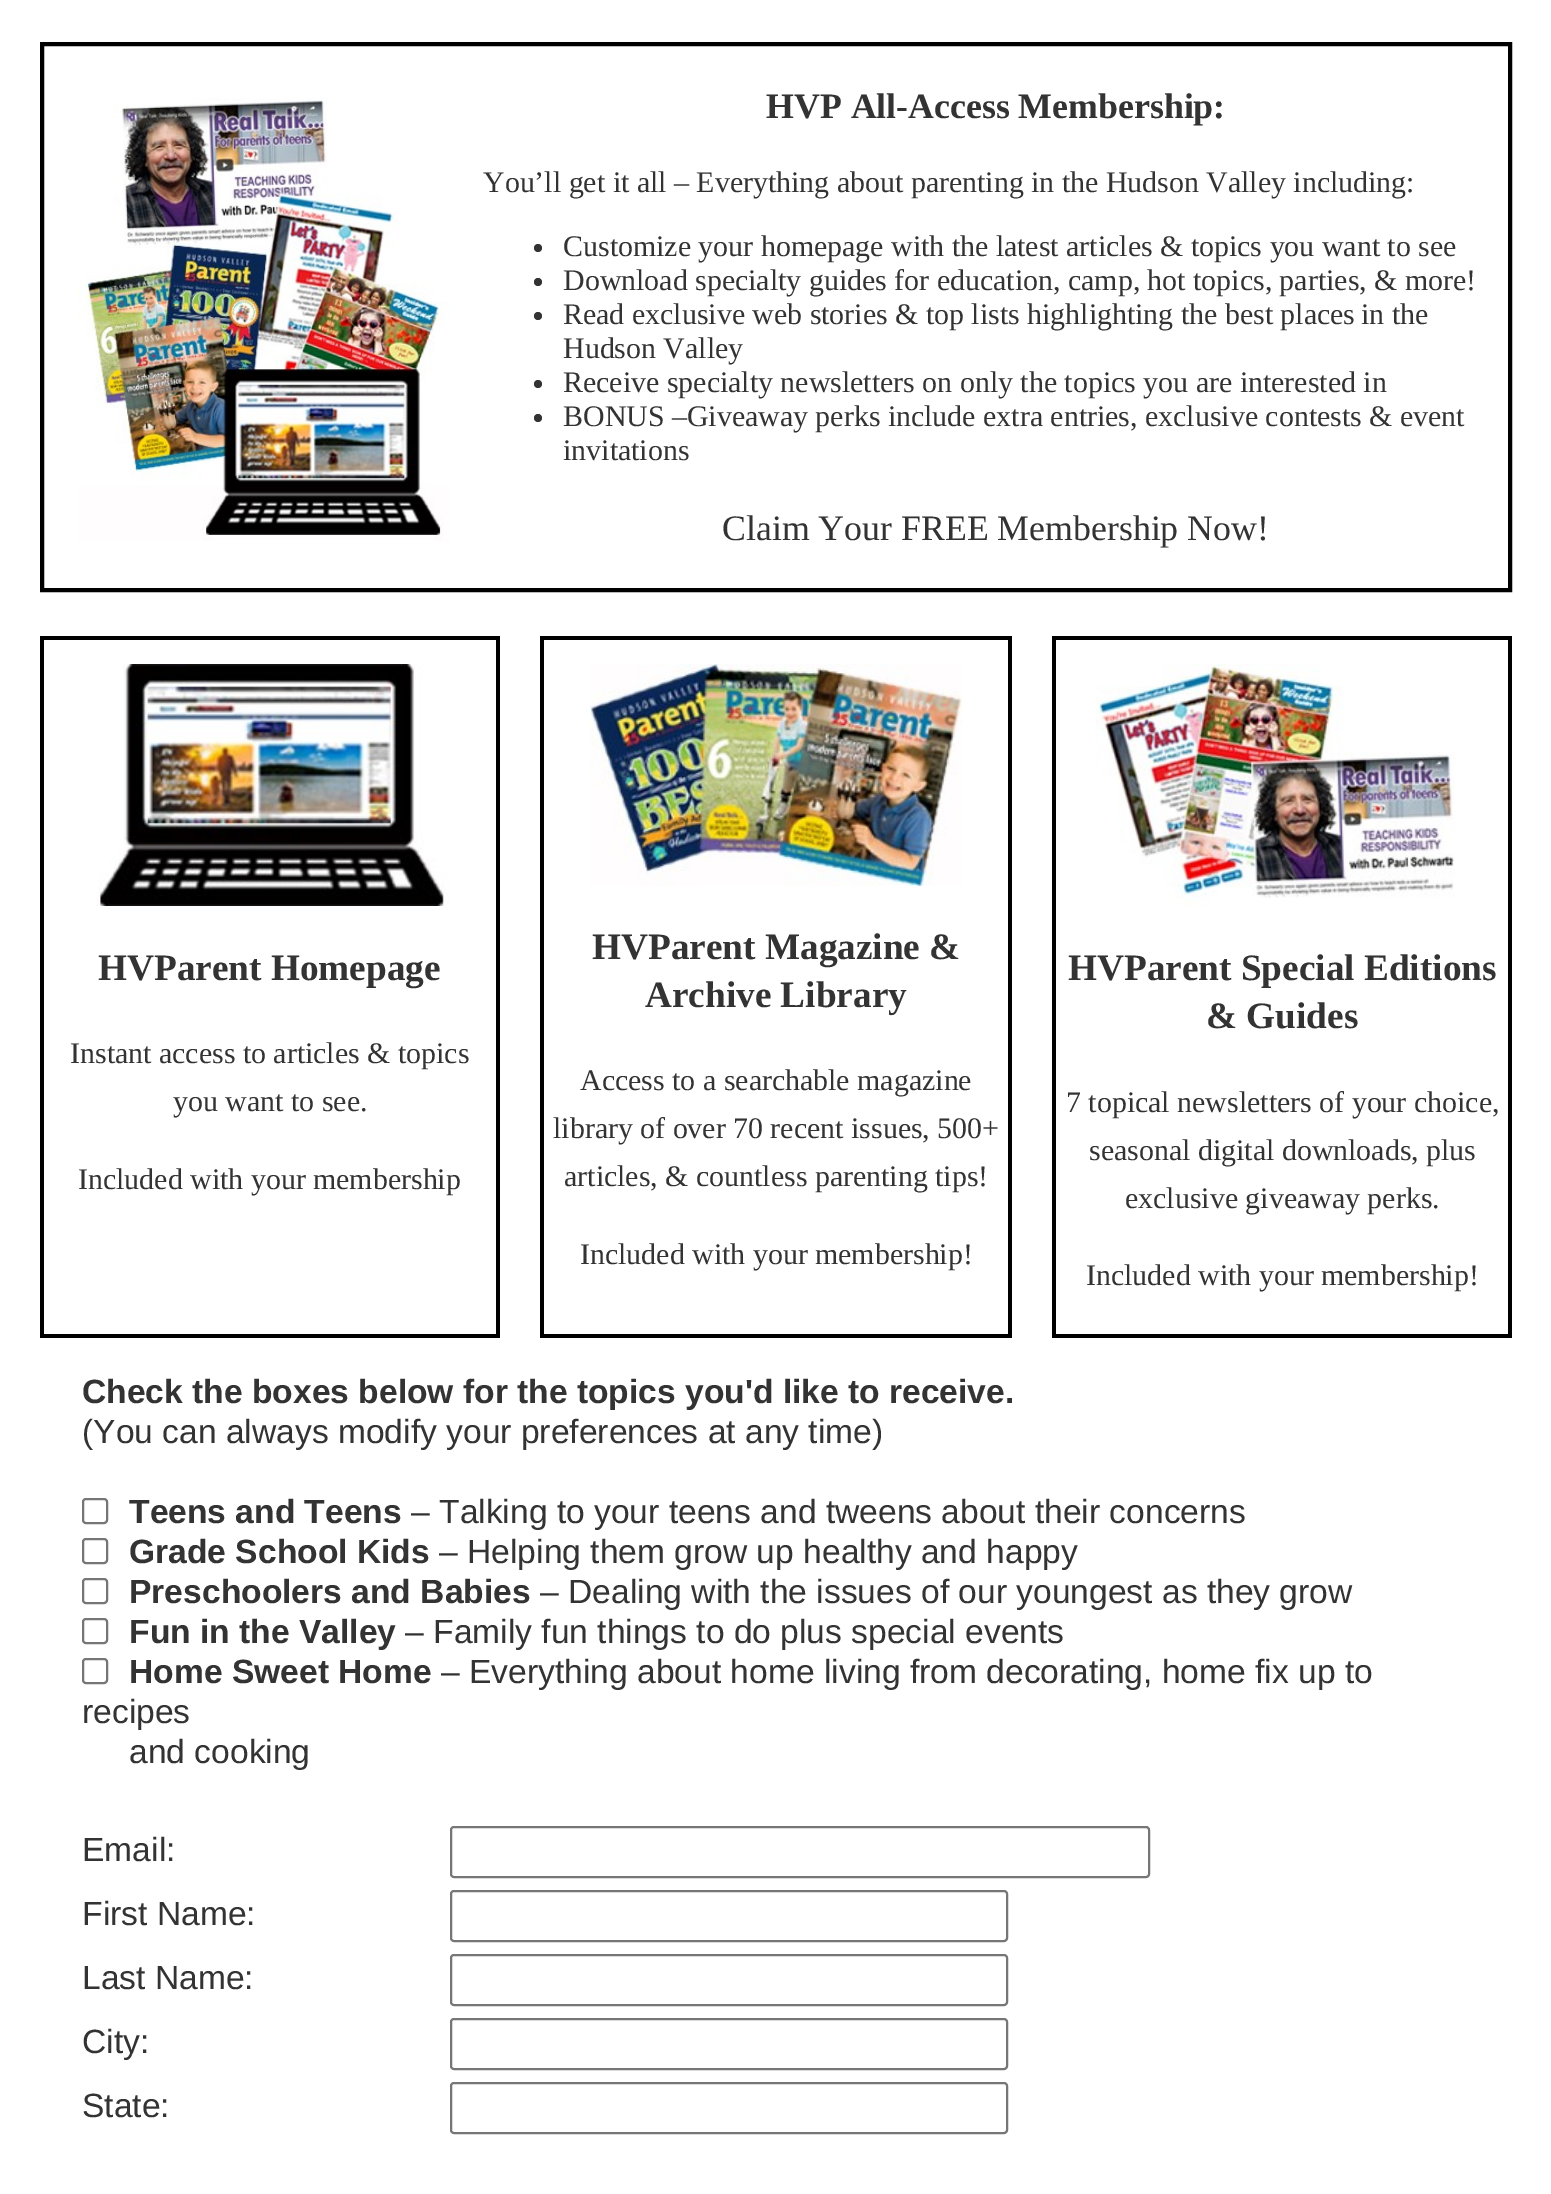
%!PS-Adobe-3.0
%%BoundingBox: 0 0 1551 2194
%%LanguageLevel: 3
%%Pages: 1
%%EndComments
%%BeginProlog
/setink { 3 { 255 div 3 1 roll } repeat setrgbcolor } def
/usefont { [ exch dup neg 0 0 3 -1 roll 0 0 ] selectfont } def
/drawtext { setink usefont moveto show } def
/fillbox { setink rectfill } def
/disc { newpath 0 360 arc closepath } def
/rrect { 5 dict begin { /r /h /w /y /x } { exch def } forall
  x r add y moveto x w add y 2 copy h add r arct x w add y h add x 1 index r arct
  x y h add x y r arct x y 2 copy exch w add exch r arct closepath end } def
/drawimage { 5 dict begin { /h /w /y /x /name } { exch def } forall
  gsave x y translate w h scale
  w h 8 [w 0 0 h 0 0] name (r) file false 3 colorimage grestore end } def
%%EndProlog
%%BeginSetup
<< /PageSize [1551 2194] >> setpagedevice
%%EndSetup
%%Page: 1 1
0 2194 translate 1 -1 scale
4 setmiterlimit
0 0 1551 2194 255 255 255 fillbox
0 0 0 setink
4 setlinewidth
42 44 1468 546 rectstroke
(assets/img1.rgb) 78 98 372 443 drawimage
(HVP All-Access Membership:) 766 118 /LiberationSerif-Bold 35.8 51 51 51 drawtext
(You’ll get it all – Everything about parenting in the Hudson Valley including:) 483 192 /LiberationSerif-Regular 29.9 51 51 51 drawtext
538 248 4 disc fill
(Customize your homepage with the latest articles & topics you want to see) 563 256 /LiberationSerif-Regular 29.9 51 51 51 drawtext
538 282 4 disc fill
(Download specialty guides for education, camp, hot topics, parties, & more!) 563 290 /LiberationSerif-Regular 29.9 51 51 51 drawtext
538 316 4 disc fill
(Read exclusive web stories & top lists highlighting the best places) 563 324 /LiberationSerif-Regular 29.9 51 51 51 drawtext
(in the) 1361 324 /LiberationSerif-Regular 29.9 51 51 51 drawtext
(Hudson Valley) 563 358 /LiberationSerif-Regular 29.9 51 51 51 drawtext
538 384 4 disc fill
(Receive specialty newsletters on only the topics you are interested in) 563 392 /LiberationSerif-Regular 29.9 51 51 51 drawtext
538 418 4 disc fill
(BONUS –Giveaway perks include extra entries, exclusive contests & event) 563 426 /LiberationSerif-Regular 29.9 51 51 51 drawtext
(invitations) 563 460 /LiberationSerif-Regular 29.9 51 51 51 drawtext
(Claim Your FREE Membership Now!) 722 540 /LiberationSerif-Regular 35.8 51 51 51 drawtext
40 636 460 4 0 0 0 fillbox
496 636 4 702 0 0 0 fillbox
40 1334 460 4 0 0 0 fillbox
40 636 4 702 0 0 0 fillbox
(assets/img2.rgb) 97 664 352 242 drawimage
(HVParent Homepage) 98 980 /LiberationSerif-Bold 37.25 51 51 51 drawtext
(Instant access to articles & topics) 70 1063 /LiberationSerif-Regular 29.9 51 51 51 drawtext
(you want to see.) 173 1111 /LiberationSerif-Regular 29.9 51 51 51 drawtext
(Included with your membership) 78 1189 /LiberationSerif-Regular 29.9 51 51 51 drawtext
540 636 472 4 0 0 0 fillbox
1008 636 4 702 0 0 0 fillbox
540 1334 472 4 0 0 0 fillbox
540 636 4 702 0 0 0 fillbox
(assets/img3.rgb) 590 664 372 222 drawimage
(HVParent Magazine &) 592 959 /LiberationSerif-Bold 37.25 51 51 51 drawtext
(Archive Library) 645 1007 /LiberationSerif-Bold 37.25 51 51 51 drawtext
(Access to a searchable magazine) 580 1090 /LiberationSerif-Regular 29.9 51 51 51 drawtext
(library of over 70 recent issues, 500+) 553 1138 /LiberationSerif-Regular 29.9 51 51 51 drawtext
(articles, & countless parenting tips!) 564 1186 /LiberationSerif-Regular 29.9 51 51 51 drawtext
(Included with your membership!) 580 1264 /LiberationSerif-Regular 29.9 51 51 51 drawtext
1052 636 460 4 0 0 0 fillbox
1508 636 4 702 0 0 0 fillbox
1052 1334 460 4 0 0 0 fillbox
1052 636 4 702 0 0 0 fillbox
(assets/img4.rgb) 1096 664 359 242 drawimage
(HVParent Special Editions) 1068 980 /LiberationSerif-Bold 37.25 51 51 51 drawtext
(& Guides) 1206 1028 /LiberationSerif-Bold 37.25 51 51 51 drawtext
(7 topical newsletters of your choice,) 1066 1112 /LiberationSerif-Regular 29.9 51 51 51 drawtext
(seasonal digital downloads, plus) 1089 1160 /LiberationSerif-Regular 29.9 51 51 51 drawtext
(exclusive giveaway perks.) 1125 1208 /LiberationSerif-Regular 29.9 51 51 51 drawtext
(Included with your membership!) 1086 1285 /LiberationSerif-Regular 29.9 51 51 51 drawtext
(Check the boxes below for the topics you'd like to receive.) 82 1403 /LiberationSans-Bold 33.6 51 51 51 drawtext
(\(You can always modify your preferences at any time\)) 82 1443 /LiberationSans-Regular 33.6 51 51 51 drawtext
118 118 118 setink
2 setlinewidth
83 1499 24 24 3 rrect stroke
(Teens and Teens) 129 1523 /LiberationSans-Bold 33.6 51 51 51 drawtext
(– Talking to your teens and tweens about their concerns) 411 1523 /LiberationSans-Regular 33.6 51 51 51 drawtext
118 118 118 setink
83 1539 24 24 3 rrect stroke
(Grade School Kids) 129 1563 /LiberationSans-Bold 33.6 51 51 51 drawtext
(– Helping them grow up healthy and happy) 439 1563 /LiberationSans-Regular 33.6 51 51 51 drawtext
118 118 118 setink
83 1579 24 24 3 rrect stroke
(Preschoolers and Babies) 129 1603 /LiberationSans-Bold 33.6 51 51 51 drawtext
(– Dealing with the issues of our youngest as they grow) 540 1603 /LiberationSans-Regular 33.6 51 51 51 drawtext
118 118 118 setink
83 1619 24 24 3 rrect stroke
(Fun in the Valley) 129 1643 /LiberationSans-Bold 33.6 51 51 51 drawtext
(– Family fun things to do plus special events) 405 1643 /LiberationSans-Regular 33.6 51 51 51 drawtext
118 118 118 setink
83 1659 24 24 3 rrect stroke
(Home Sweet Home) 129 1683 /LiberationSans-Bold 33.6 51 51 51 drawtext
(– Everything about home living from decorating, home fix up to) 441 1683 /LiberationSans-Regular 33.6 51 51 51 drawtext
(recipes) 82 1723 /LiberationSans-Regular 33.6 51 51 51 drawtext
(and cooking) 129 1763 /LiberationSans-Regular 33.6 51 51 51 drawtext
(Email:) 82 1861 /LiberationSans-Regular 33.6 51 51 51 drawtext
118 118 118 setink
451 1827 698 50 3 rrect stroke
(First Name:) 82 1925 /LiberationSans-Regular 33.6 51 51 51 drawtext
118 118 118 setink
451 1891 556 50 3 rrect stroke
(Last Name:) 82 1989 /LiberationSans-Regular 33.6 51 51 51 drawtext
118 118 118 setink
451 1955 556 50 3 rrect stroke
(City:) 82 2053 /LiberationSans-Regular 33.6 51 51 51 drawtext
118 118 118 setink
451 2019 556 50 3 rrect stroke
(State:) 82 2117 /LiberationSans-Regular 33.6 51 51 51 drawtext
118 118 118 setink
451 2083 556 50 3 rrect stroke
showpage
%%EOF
